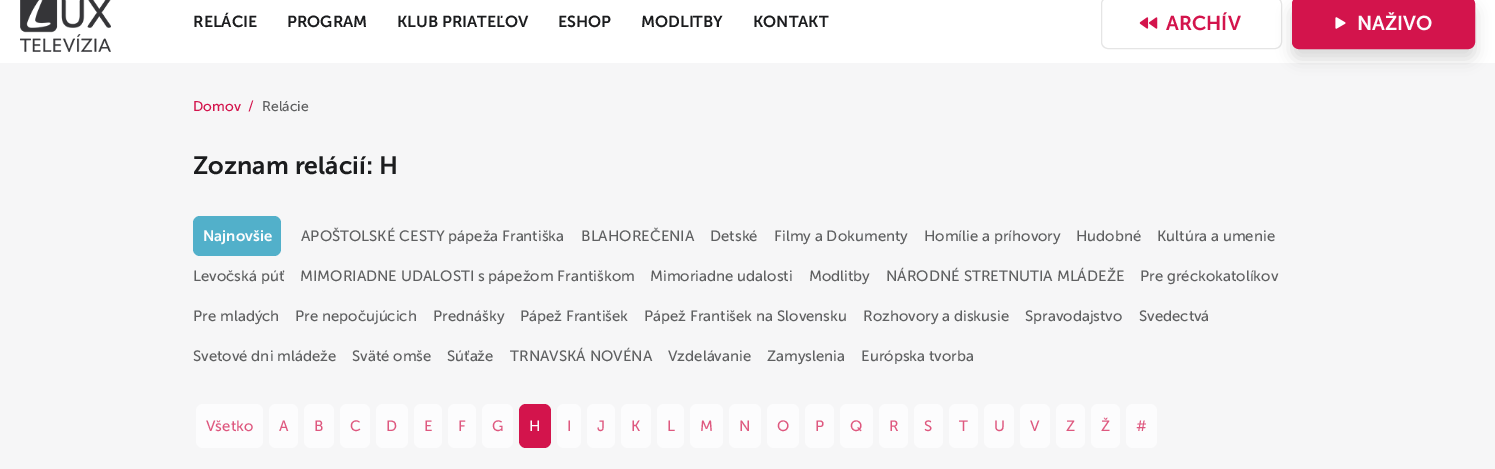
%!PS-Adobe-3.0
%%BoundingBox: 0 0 1495 469
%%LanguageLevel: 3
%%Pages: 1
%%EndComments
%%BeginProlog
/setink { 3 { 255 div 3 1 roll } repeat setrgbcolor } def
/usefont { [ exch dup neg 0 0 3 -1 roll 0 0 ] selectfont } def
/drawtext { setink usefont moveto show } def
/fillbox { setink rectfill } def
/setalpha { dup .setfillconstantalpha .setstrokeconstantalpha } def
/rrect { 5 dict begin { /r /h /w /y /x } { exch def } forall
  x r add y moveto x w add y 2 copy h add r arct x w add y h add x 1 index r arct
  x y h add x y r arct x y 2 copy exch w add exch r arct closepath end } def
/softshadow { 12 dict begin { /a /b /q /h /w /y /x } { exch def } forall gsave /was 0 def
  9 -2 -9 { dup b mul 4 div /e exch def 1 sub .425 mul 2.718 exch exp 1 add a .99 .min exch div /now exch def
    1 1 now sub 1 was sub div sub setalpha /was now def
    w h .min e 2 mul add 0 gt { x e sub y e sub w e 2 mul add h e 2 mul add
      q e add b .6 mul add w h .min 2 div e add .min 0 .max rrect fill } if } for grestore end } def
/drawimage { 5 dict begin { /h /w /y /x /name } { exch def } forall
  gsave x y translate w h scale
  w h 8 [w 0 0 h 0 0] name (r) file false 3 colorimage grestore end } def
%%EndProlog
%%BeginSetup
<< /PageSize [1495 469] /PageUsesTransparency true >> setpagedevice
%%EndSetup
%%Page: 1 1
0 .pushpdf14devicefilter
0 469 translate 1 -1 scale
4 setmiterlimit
0 0 1495 469 246 246 247 fillbox
0 0 1495 63 255 255 255 fillbox
(assets/img1.rgb) 20 0 91 52 drawimage
(RELÁCIE) 193 27 /MuseoSans-SemiBold 16 27 28 30 drawtext
(PROGRAM) 287 27 /MuseoSans-SemiBold 16 27 28 30 drawtext
(KLUB PRIATEĽOV) 397 27 /MuseoSans-SemiBold 16 27 28 30 drawtext
(ESHOP) 558 27 /MuseoSans-SemiBold 16 27 28 30 drawtext
(MODLITBY) 641 27 /MuseoSans-SemiBold 16 27 28 30 drawtext
(KONTAKT) 753 27 /MuseoSans-SemiBold 16 27 28 30 drawtext
229 229 229 setink
1101.5 -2.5 180 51 6.5 rrect stroke
(assets/img2.rgb) 1139 17 19 12 drawimage
(ARCHÍV) 1166 30 /MuseoSans-SemiBold 20 211 20 76 drawtext
0 0 0 setink
1292 7 183 52 7 7.5 0.15 softshadow
211 20 76 setink
1292.5 -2.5 182 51 6.5 rrect gsave fill grestore
stroke
(assets/img3.rgb) 1335 17 11 12 drawimage
(NAŽIVO) 1357 30 /MuseoSans-SemiBold 20 252 252 253 drawtext
(Domov) 193 111 /MuseoSans-Regular 14 211 20 76 drawtext
(/) 248 111 /MuseoSans-Regular 14 211 20 76 drawtext
(Relácie) 262 111 /MuseoSans-Regular 14 95 96 97 drawtext
(Zoznam relácií: H) 193 174 /MuseoSans-SemiBold 25 27 28 30 drawtext
82 176 202 setink
193 216 88 40 7 rrect fill
(Najnovšie) 203 241 /MuseoSans-SemiBold 15 252 252 253 drawtext
(APOŠTOLSKÉ CESTY pápeža Františka) 301 241 /MuseoSans-Regular 15 95 96 97 drawtext
(BLAHOREČENIA) 581 241 /MuseoSans-Regular 15 95 96 97 drawtext
(Detské) 710 241 /MuseoSans-Regular 15 95 96 97 drawtext
(Filmy a Dokumenty) 774 241 /MuseoSans-Regular 15 95 96 97 drawtext
(Homílie a príhovory) 924 241 /MuseoSans-Regular 15 95 96 97 drawtext
(Hudobné) 1076 241 /MuseoSans-Regular 15 95 96 97 drawtext
(Kultúra a umenie) 1157 241 /MuseoSans-Regular 15 95 96 97 drawtext
(Levočská púť) 193 281 /MuseoSans-Regular 15 95 96 97 drawtext
(MIMORIADNE UDALOSTI s pápežom Františkom) 300 281 /MuseoSans-Regular 15 95 96 97 drawtext
(Mimoriadne udalosti) 650 281 /MuseoSans-Regular 15 95 96 97 drawtext
(Modlitby) 809 281 /MuseoSans-Regular 15 95 96 97 drawtext
(NÁRODNÉ STRETNUTIA MLÁDEŽE) 886 281 /MuseoSans-Regular 15 95 96 97 drawtext
(Pre gréckokatolíkov) 1140 281 /MuseoSans-Regular 15 95 96 97 drawtext
(Pre mladých) 193 321 /MuseoSans-Regular 15 95 96 97 drawtext
(Pre nepočujúcich) 295 321 /MuseoSans-Regular 15 95 96 97 drawtext
(Prednášky) 433 321 /MuseoSans-Regular 15 95 96 97 drawtext
(Pápež František) 520 321 /MuseoSans-Regular 15 95 96 97 drawtext
(Pápež František na Slovensku) 644 321 /MuseoSans-Regular 15 95 96 97 drawtext
(Rozhovory a diskusie) 863 321 /MuseoSans-Regular 15 95 96 97 drawtext
(Spravodajstvo) 1025 321 /MuseoSans-Regular 15 95 96 97 drawtext
(Svedectvá) 1139 321 /MuseoSans-Regular 15 95 96 97 drawtext
(Svetové dni mládeže) 193 361 /MuseoSans-Regular 15 95 96 97 drawtext
(Sväté omše) 352 361 /MuseoSans-Regular 15 95 96 97 drawtext
(Súťaže) 447 361 /MuseoSans-Regular 15 95 96 97 drawtext
(TRNAVSKÁ NOVÉNA) 510 361 /MuseoSans-Regular 15 95 96 97 drawtext
(Vzdelávanie) 668 361 /MuseoSans-Regular 15 95 96 97 drawtext
(Zamyslenia) 767 361 /MuseoSans-Regular 15 95 96 97 drawtext
(Európska tvorba) 861 361 /MuseoSans-Regular 15 95 96 97 drawtext
252 252 253 setink
196 404 67 44 7 rrect fill
(Všetko) 206 431 /MuseoSans-Regular 15 222 88 127 drawtext
252 252 253 setink
269 404 29 44 7 rrect fill
(A) 279 431 /MuseoSans-Regular 15 222 88 127 drawtext
252 252 253 setink
304 404 30 44 7 rrect fill
(B) 314 431 /MuseoSans-Regular 15 222 88 127 drawtext
252 252 253 setink
340 404 30 44 7 rrect fill
(C) 350 431 /MuseoSans-Regular 15 222 88 127 drawtext
252 252 253 setink
376 404 32 44 7 rrect fill
(D) 386 431 /MuseoSans-Regular 15 222 88 127 drawtext
252 252 253 setink
414 404 28 44 7 rrect fill
(E) 424 431 /MuseoSans-Regular 15 222 88 127 drawtext
252 252 253 setink
448 404 28 44 7 rrect fill
(F) 458 431 /MuseoSans-Regular 15 222 88 127 drawtext
252 252 253 setink
482 404 31 44 7 rrect fill
(G) 492 431 /MuseoSans-Regular 15 222 88 127 drawtext
211 20 76 setink
519 404 32 44 7 rrect fill
(H) 529 431 /MuseoSans-Regular 15 252 252 253 drawtext
557 404 24 44 7 rrect fill
(I) 567 431 /MuseoSans-Regular 15 222 88 127 drawtext
252 252 253 setink
587 404 28 44 7 rrect fill
(J) 597 431 /MuseoSans-Regular 15 222 88 127 drawtext
252 252 253 setink
621 404 30 44 7 rrect fill
(K) 631 431 /MuseoSans-Regular 15 222 88 127 drawtext
252 252 253 setink
657 404 27 44 7 rrect fill
(L) 667 431 /MuseoSans-Regular 15 222 88 127 drawtext
252 252 253 setink
690 404 33 44 7 rrect fill
(M) 700 431 /MuseoSans-Regular 15 222 88 127 drawtext
252 252 253 setink
729 404 32 44 7 rrect fill
(N) 739 431 /MuseoSans-Regular 15 222 88 127 drawtext
252 252 253 setink
767 404 32 44 7 rrect fill
(O) 777 431 /MuseoSans-Regular 15 222 88 127 drawtext
252 252 253 setink
805 404 29 44 7 rrect fill
(P) 815 431 /MuseoSans-Regular 15 222 88 127 drawtext
252 252 253 setink
840 404 33 44 7 rrect fill
(Q) 850 431 /MuseoSans-Regular 15 222 88 127 drawtext
252 252 253 setink
879 404 29 44 7 rrect fill
(R) 889 431 /MuseoSans-Regular 15 222 88 127 drawtext
252 252 253 setink
914 404 29 44 7 rrect fill
(S) 924 431 /MuseoSans-Regular 15 222 88 127 drawtext
252 252 253 setink
949 404 29 44 7 rrect fill
(T) 959 431 /MuseoSans-Regular 15 222 88 127 drawtext
252 252 253 setink
984 404 30 44 7 rrect fill
(U) 994 431 /MuseoSans-Regular 15 222 88 127 drawtext
252 252 253 setink
1020 404 30 44 7 rrect fill
(V) 1030 431 /MuseoSans-Regular 15 222 88 127 drawtext
252 252 253 setink
1056 404 29 44 7 rrect fill
(Z) 1066 431 /MuseoSans-Regular 15 222 88 127 drawtext
252 252 253 setink
1091 404 29 44 7 rrect fill
(Ž) 1101 431 /MuseoSans-Regular 15 222 88 127 drawtext
252 252 253 setink
1126 404 31 44 7 rrect fill
(#) 1136 431 /MuseoSans-Regular 15 222 88 127 drawtext
.poppdf14devicefilter showpage
%%EOF
